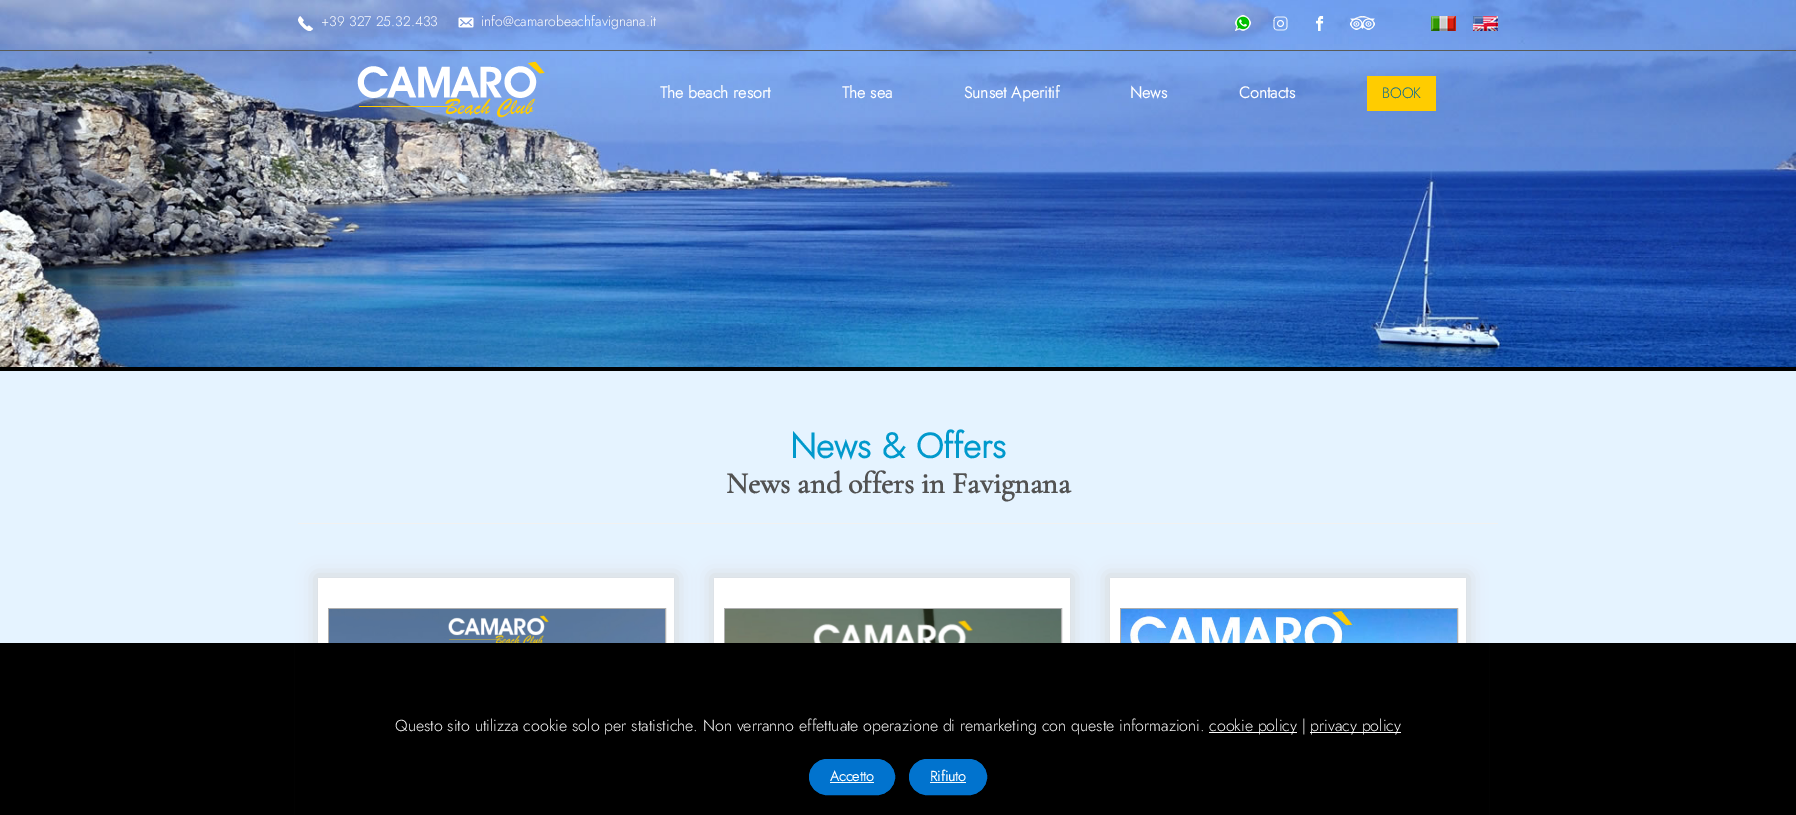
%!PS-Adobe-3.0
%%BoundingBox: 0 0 1796 815
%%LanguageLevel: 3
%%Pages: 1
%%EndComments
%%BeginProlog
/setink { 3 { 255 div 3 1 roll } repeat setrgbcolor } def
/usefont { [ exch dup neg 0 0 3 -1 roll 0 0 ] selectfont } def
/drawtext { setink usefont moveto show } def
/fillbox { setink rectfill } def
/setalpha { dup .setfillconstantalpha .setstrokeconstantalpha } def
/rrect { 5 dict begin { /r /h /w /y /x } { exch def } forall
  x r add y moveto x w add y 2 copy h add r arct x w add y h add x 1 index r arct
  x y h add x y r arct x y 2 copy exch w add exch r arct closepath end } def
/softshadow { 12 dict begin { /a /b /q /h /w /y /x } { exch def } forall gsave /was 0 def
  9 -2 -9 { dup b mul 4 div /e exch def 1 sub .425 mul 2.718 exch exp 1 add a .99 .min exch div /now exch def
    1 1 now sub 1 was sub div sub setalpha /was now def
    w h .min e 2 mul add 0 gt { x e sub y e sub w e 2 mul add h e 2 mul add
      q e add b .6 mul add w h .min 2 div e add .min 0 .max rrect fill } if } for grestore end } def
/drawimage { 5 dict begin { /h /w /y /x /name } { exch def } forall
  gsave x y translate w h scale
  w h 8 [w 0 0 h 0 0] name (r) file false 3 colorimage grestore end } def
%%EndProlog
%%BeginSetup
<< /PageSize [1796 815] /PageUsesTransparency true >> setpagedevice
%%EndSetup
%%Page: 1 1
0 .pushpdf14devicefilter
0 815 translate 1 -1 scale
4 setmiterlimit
0 0 1796 815 0 0 0 fillbox
(assets/img1.rgb) 0 0 1796 367 drawimage
0 50 1796 1 89 91 88 fillbox
(assets/img2.rgb) 298 16 15 15 drawimage
(+39 327 25.32.433) 321 26 /Jost-Light 14 255 255 255 drawtext
(assets/img3.rgb) 458 17 16 11 drawimage
(info@camarobeachfavignana.it) 481 26 /Jost-Light 14 255 255 255 drawtext
(assets/img4.rgb) 1235 15 16 16 drawimage
(assets/img5.rgb) 1273 16 15 15 drawimage
(assets/img6.rgb) 1316 16 8 15 drawimage
(assets/img7.rgb) 1350 16 25 14 drawimage
(assets/img8.rgb) 1431 16 25 15 drawimage
(assets/img9.rgb) 1473 16 25 15 drawimage
(assets/img10.rgb) 357 61 188 57 drawimage
(The beach resort) 660 98 /Jost-Bold 16 255 255 255 drawtext
(The sea) 842 98 /Jost-Bold 16 255 255 255 drawtext
(Sunset Aperitif) 964 98 /Jost-Bold 16 255 255 255 drawtext
(News) 1130 98 /Jost-Bold 16 255 255 255 drawtext
(Contacts) 1239 98 /Jost-Bold 16 255 255 255 drawtext
1367 76 69 35 255 204 0 fillbox
(BOOK) 1382 98 /Jost-Light 15 0 102 153 drawtext
0 371 1796 272 229 243 255 fillbox
(News & Offers) 790 458 /Jost-Bold 35 0 153 204 drawtext
(News and offers in Favignana) 726 493 /CormorantGaramond-Bold 30 82 82 82 drawtext
298 523 1200 1 241 241 241 fillbox
217 217 217 setink
315 575 362 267 0 9 1 softshadow
318 578 356 65 255 255 255 fillbox
174 174 174 setink
328.5 608.5 337 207 rectstroke
(assets/img11.rgb) 329 609 336 34 drawimage
217 217 217 setink
711 575 362 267 0 9 1 softshadow
714 578 356 65 255 255 255 fillbox
174 174 174 setink
724.5 608.5 337 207 rectstroke
(assets/img12.rgb) 725 609 336 34 drawimage
217 217 217 setink
1107 575 362 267 0 9 1 softshadow
1110 578 356 65 255 255 255 fillbox
174 174 174 setink
1120.5 608.5 337 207 rectstroke
(assets/img13.rgb) 1121 609 336 34 drawimage
295 643 1194 172 0 0 0 fillbox
(Questo sito utilizza cookie solo per statistiche. Non verranno effettuate operazione di remarketing con queste informazioni.) 395 731 /Jost-Light 16 255 255 255 drawtext
1209 732 88 1 255 255 255 fillbox
(cookie policy |) 1209 731 /Jost-Light 16 255 255 255 drawtext
1310 732 91 1 255 255 255 fillbox
(privacy policy) 1310 731 /Jost-Light 16 255 255 255 drawtext
1 115 206 setink
809.5 759.5 85 35 17.5 rrect gsave fill grestore
stroke
(Accetto) 830 781 /Jost-Bold 14 255 255 255 drawtext
830 782 44 1 255 255 255 fillbox
1 115 206 setink
909.5 759.5 77 35 17.5 rrect gsave fill grestore
stroke
(Rifiuto) 930 781 /Jost-Bold 14 255 255 255 drawtext
930 782 36 1 255 255 255 fillbox
.poppdf14devicefilter showpage
%%EOF
